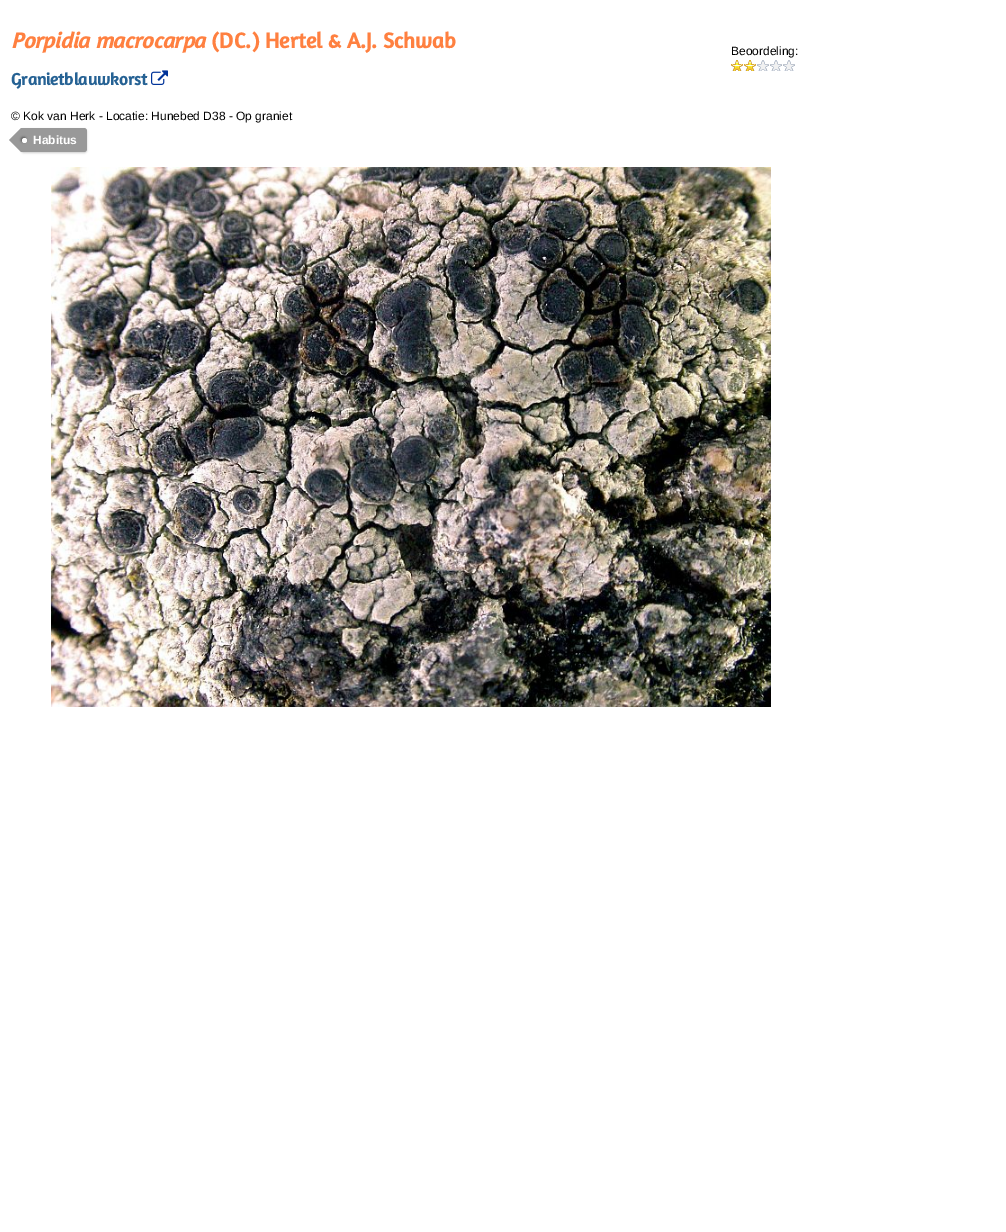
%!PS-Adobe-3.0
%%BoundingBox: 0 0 1006 1232
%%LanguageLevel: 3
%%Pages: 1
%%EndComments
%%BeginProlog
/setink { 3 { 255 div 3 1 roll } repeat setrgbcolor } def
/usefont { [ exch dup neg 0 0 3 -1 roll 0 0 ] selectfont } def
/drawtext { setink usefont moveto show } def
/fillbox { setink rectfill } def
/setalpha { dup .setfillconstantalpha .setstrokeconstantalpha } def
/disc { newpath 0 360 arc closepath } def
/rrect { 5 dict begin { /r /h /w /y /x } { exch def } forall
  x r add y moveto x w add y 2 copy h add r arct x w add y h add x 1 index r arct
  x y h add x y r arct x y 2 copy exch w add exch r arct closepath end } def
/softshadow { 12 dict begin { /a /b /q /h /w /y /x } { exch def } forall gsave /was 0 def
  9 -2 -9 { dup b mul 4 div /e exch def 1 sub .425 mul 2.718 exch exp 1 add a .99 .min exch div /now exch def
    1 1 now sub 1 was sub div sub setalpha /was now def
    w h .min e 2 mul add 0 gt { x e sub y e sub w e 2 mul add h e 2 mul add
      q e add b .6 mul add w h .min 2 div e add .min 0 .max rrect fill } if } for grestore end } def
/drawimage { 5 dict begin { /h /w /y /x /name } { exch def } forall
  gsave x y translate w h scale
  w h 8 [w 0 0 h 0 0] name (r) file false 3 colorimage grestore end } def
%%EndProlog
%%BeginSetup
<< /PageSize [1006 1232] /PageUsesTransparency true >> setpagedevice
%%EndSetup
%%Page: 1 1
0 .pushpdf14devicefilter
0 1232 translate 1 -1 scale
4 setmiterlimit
0 0 1006 1232 255 255 255 fillbox
(Porpidia macrocarpa) 11 48 /Amaranth-BoldItalic 22 255 128 64 drawtext
(\(DC.\) Hertel & A.J. Schwab) 211 48 /Amaranth-Bold 22 255 128 64 drawtext
(Granietblauwkorst) 11 85 /Amaranth-Bold 17 38 98 148 drawtext
(assets/img1.rgb) 151 70 17 15 drawimage
(Beoordeling:) 731 55 /LiberationSans-Regular 12 0 0 0 drawtext
(assets/img2.rgb) 731 60 12 11 drawimage
(assets/img2.rgb) 744 60 12 11 drawimage
(assets/img3.rgb) 757 60 12 11 drawimage
(assets/img3.rgb) 770 60 12 11 drawimage
(assets/img3.rgb) 783 60 12 11 drawimage
(© Kok van Herk - Locatie: Hunebed D38 - Op graniet) 11 120 /LiberationSans-Regular 12 0 0 0 drawtext
21 129 66 24 3 1 0.2 softshadow
153 153 153 setink
21 128 moveto 84 128 lineto 85.5 128 87 129.5 87 131 curveto 87 149 lineto 87 150.5 85.5 152 84 152 curveto 21 152 lineto closepath fill
21 128 moveto 21 152 lineto 9 140 lineto closepath fill
0 0 0 setink
21 137 5 5 2.5 1 0.4 softshadow
255 255 255 setink
24.5 140.5 2.5 disc fill
(Habitus) 33 144 /LiberationSans-Bold 12 255 255 255 drawtext
(assets/img4.rgb) 51 167 720 540 drawimage
.poppdf14devicefilter showpage
%%EOF
